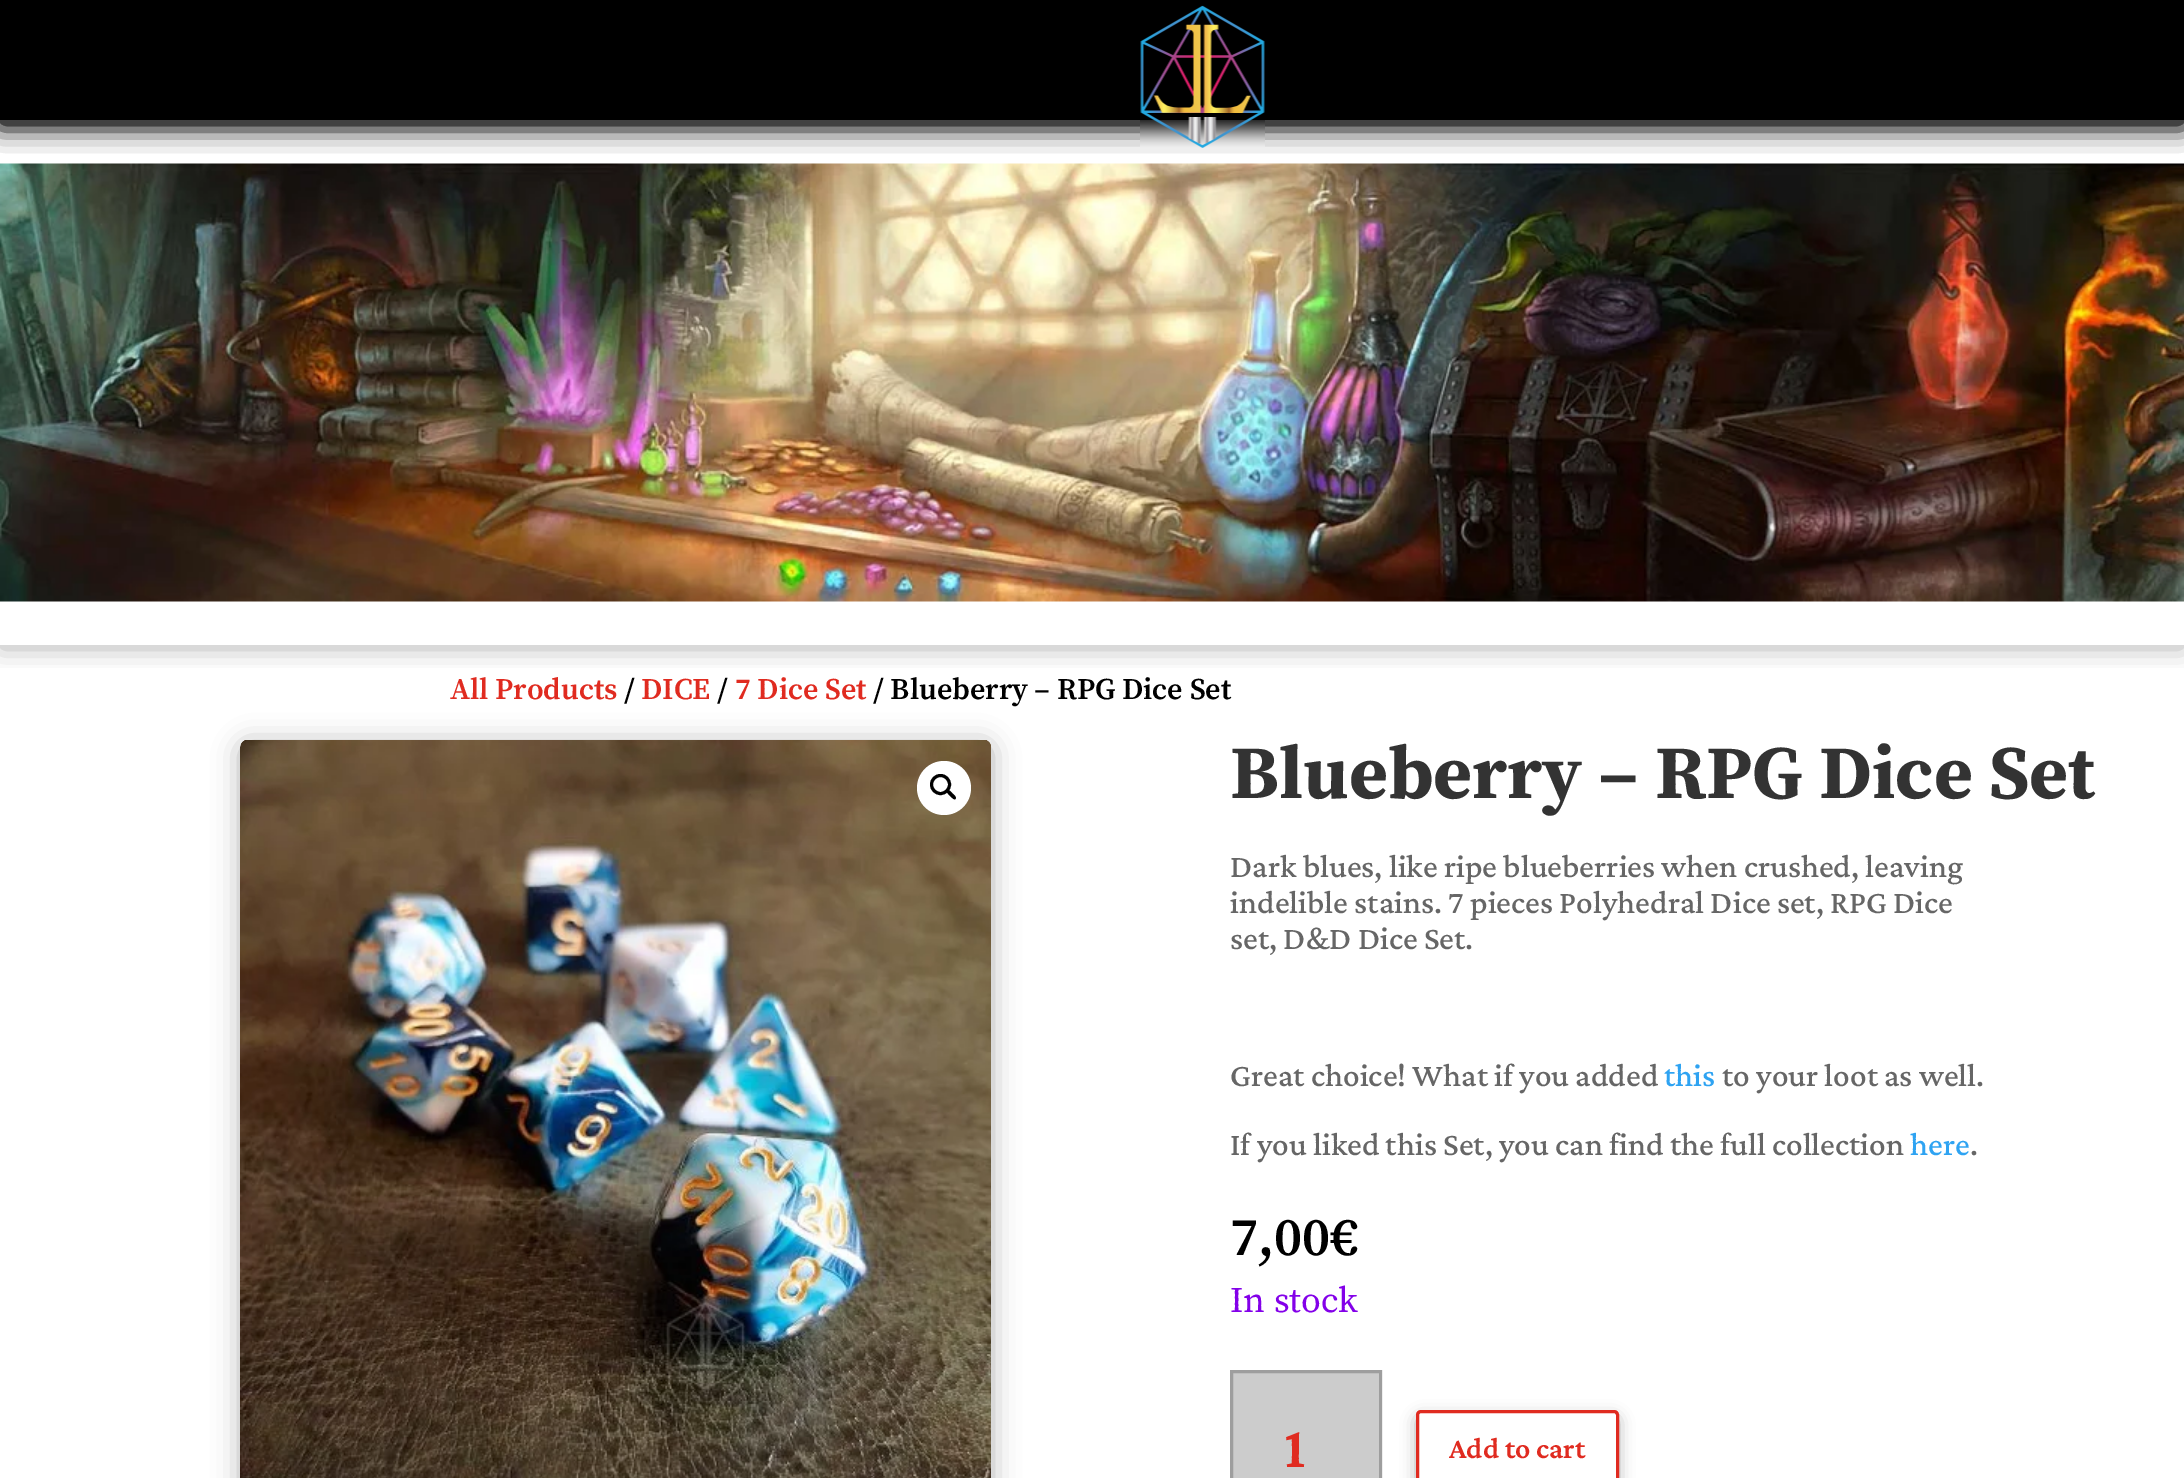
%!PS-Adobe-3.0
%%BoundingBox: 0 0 2184 1478
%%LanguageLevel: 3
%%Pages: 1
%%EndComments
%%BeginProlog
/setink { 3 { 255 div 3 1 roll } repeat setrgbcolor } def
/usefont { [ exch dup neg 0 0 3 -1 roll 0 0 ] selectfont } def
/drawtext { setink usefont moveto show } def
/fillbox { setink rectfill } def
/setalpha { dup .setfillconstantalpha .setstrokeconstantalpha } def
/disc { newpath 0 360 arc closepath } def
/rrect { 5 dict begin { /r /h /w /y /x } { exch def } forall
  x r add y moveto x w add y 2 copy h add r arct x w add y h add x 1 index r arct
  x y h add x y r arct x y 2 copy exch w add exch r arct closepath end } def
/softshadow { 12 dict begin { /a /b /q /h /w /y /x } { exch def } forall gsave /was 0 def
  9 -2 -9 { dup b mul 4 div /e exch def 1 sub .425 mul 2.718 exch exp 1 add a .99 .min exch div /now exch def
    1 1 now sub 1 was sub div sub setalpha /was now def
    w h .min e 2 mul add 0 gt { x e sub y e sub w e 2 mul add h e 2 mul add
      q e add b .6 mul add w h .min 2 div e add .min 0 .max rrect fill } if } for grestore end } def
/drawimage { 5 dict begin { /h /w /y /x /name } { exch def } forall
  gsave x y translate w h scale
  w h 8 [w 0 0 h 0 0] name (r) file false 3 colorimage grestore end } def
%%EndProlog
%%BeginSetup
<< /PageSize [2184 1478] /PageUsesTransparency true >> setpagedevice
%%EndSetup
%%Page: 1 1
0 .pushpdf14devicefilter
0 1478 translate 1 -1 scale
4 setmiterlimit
0 0 2184 1478 255 255 255 fillbox
1230 1370 152 108 204 204 204 fillbox
gsave
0 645 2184 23 rectclip
0 0 0 setink
0 123 2184 525 0 13.5 0.3 softshadow
grestore
(assets/img2.rgb) 0 163 2184 439 drawimage
0 0 0 setink
0 3 2184 120 0 13.5 1 softshadow
0 3 2184 120 0 13.5 1 softshadow
0 0 2184 120 0 0 0 fillbox
(assets/img1.rgb) 1140 5 125 143 drawimage
(All Products) 450 699 /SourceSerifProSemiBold-SemiBold 30 224 43 32 drawtext
(/) 624 699 /SourceSerifProSemiBold-SemiBold 30 0 0 0 drawtext
(DICE) 641 699 /SourceSerifProSemiBold-SemiBold 30 224 43 32 drawtext
(/) 717 699 /SourceSerifProSemiBold-SemiBold 30 0 0 0 drawtext
(7 Dice Set) 735 699 /SourceSerifProSemiBold-SemiBold 30 224 43 32 drawtext
(/ Blueberry – RPG Dice Set) 873 699 /SourceSerifProSemiBold-SemiBold 30 0 0 0 drawtext
240 743 752 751 8 13.5 0.3 softshadow
(assets/img3.rgb) 240 740 751 738 drawimage
255 255 255 setink
944 788 27 disc fill
0 0 0 setink
3 setlinewidth
940.5 784.5 9 disc stroke
947 790.5 moveto 948.5 788.5 951.5 792.5 952.5 793.5 curveto 953.5 794.5 957 797 955.5 799 curveto 954 800.5 951 796.5 950 796 curveto 949.5 795 945.5 792 947 790.5 curveto closepath fill
(Blueberry – RPG Dice Set) 1230 798 /SourceSerifPro-Bold 75 51 51 51 drawtext
(Dark blues, like ripe blueberries when crushed, leaving) 1230 877 /CrimsonPro-Medium 33 102 102 102 drawtext
(indelible stains. 7 pieces Polyhedral Dice set, RPG Dice) 1230 913 /CrimsonPro-Medium 33 102 102 102 drawtext
(set, D&D Dice Set.) 1230 949 /CrimsonPro-Medium 33 102 102 102 drawtext
(Great choice! What if you added) 1230 1086 /CrimsonPro-Medium 33 102 102 102 drawtext
(this) 1664 1086 /CrimsonPro-Medium 33 46 163 242 drawtext
(to your loot as well.) 1722 1086 /CrimsonPro-Medium 33 102 102 102 drawtext
(If you liked this Set, you can find the full collection) 1230 1155 /CrimsonPro-Medium 33 102 102 102 drawtext
(here) 1910 1155 /CrimsonPro-Medium 33 46 163 242 drawtext
(.) 1970 1155 /CrimsonPro-Medium 33 102 102 102 drawtext
(7,00€) 1230 1255 /SourceSerifProSemiBold-SemiBold 54 0 0 0 drawtext
(In stock) 1230 1312 /SourceSerifPro-Regular 36 131 0 233 drawtext
gsave
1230 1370 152 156 rectclip
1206 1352 moveto 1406 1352 lineto 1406 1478 lineto 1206 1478 lineto closepath 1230 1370 moveto 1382 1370 lineto 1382 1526 lineto 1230 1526 lineto closepath eoclip newpath
0 0 0 setink
1230 1376 152 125 0 7.5 0.3 softshadow
grestore
0.3 setalpha
51 51 51 setink
1231.5 1371.5 149 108 rectstroke
1 setalpha
(1) 1284 1467 /CrimsonPro-SemiBold 60 224 43 32 drawtext
gsave
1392 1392 moveto 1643 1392 lineto 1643 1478 lineto 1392 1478 lineto closepath 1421 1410 moveto 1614 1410 lineto 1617 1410 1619 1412 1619 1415 curveto 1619 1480 lineto 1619 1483 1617 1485 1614 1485 curveto 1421 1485 lineto 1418 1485 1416 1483 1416 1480 curveto 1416 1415 lineto 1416 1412 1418 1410 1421 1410 curveto closepath eoclip newpath
0 0 0 setink
1416 1416 203 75 5 7.5 0.3 softshadow
grestore
1417.5 1411.5 200 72 3.5 rrect stroke
(Add to cart) 1449 1458 /CrimsonPro-SemiBold 30 224 43 32 drawtext
.poppdf14devicefilter showpage
%%EOF
